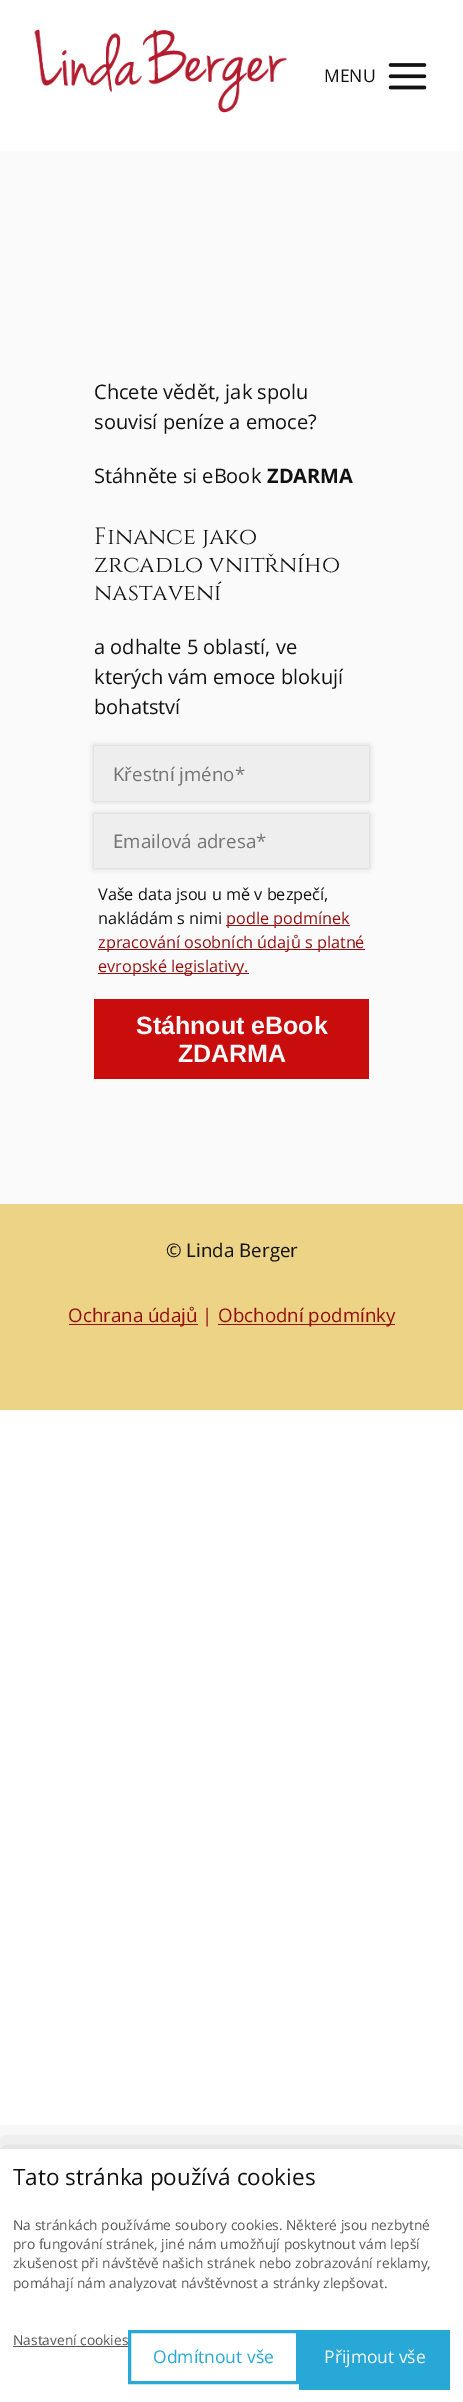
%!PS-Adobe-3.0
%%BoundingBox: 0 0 463 2402
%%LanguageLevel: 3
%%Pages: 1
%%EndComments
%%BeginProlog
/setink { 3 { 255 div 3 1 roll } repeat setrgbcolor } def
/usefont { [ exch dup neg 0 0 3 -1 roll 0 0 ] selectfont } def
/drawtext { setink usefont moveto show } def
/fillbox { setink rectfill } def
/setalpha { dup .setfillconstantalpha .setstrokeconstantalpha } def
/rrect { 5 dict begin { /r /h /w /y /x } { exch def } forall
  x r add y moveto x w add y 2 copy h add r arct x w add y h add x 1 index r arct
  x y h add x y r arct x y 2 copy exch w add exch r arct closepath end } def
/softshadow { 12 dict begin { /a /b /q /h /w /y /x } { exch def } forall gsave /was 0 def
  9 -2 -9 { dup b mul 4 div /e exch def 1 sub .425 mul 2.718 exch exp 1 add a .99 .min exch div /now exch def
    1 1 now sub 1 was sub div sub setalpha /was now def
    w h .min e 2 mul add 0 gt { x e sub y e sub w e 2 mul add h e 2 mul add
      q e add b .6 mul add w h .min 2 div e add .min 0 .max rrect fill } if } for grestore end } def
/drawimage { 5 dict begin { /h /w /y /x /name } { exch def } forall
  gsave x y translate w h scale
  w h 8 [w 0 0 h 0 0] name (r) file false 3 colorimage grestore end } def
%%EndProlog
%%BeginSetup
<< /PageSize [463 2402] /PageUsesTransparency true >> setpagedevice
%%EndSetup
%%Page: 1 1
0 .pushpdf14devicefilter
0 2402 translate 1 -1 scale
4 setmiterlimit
0 0 463 2402 255 255 255 fillbox
(assets/img1.rgb) 34 29 253 84 drawimage
(MENU) 324 82 /OpenSans-Regular 17.5 18 18 18 drawtext
(assets/img2.rgb) 388 63 39 27 drawimage
0 151 463 1053 250 250 250 fillbox
(Chcete vědět, jak spolu) 94 399 /OpenSans-Regular 20 18 18 18 drawtext
(souvisí peníze a emoce?) 94 429 /OpenSans-Regular 20 18 18 18 drawtext
(Stáhněte si eBook) 94 483 /OpenSans-Regular 20 18 18 18 drawtext
(ZDARMA) 267 483 /OpenSans-Bold 20 18 18 18 drawtext
(Finance jako) 94 544 /Cinzel-Regular 23.4 18 18 18 drawtext
(zrcadlo vnitřního) 94 572 /Cinzel-Regular 23.4 18 18 18 drawtext
(nastavení) 94 600 /Cinzel-Regular 23.4 18 18 18 drawtext
(a odhalte 5 oblastí, ve) 94 654 /OpenSans-Regular 20 18 18 18 drawtext
(kterých vám emoce blokují) 94 684 /OpenSans-Regular 20 18 18 18 drawtext
(bohatství) 94 714 /OpenSans-Regular 20 18 18 18 drawtext
0 0 0 setink
94 746 275 55 0 3 0.2 softshadow
94 746 275 55 238 238 238 fillbox
(Křestní jméno*) 113 781 /OpenSans-Regular 18.75 117 117 117 drawtext
0 0 0 setink
94 814 275 54 0 3 0.2 softshadow
94 814 275 54 238 238 238 fillbox
(Emailová adresa*) 113 848 /OpenSans-Regular 18.75 117 117 117 drawtext
(Vaše data jsou u mě v bezpečí,) 98 900 /OpenSans-Regular 16.25 18 18 18 drawtext
(nakládám s nimi) 98 924 /OpenSans-Regular 16.25 18 18 18 drawtext
226 925 124 1 148 15 15 fillbox
(podle podmínek) 226 924 /OpenSans-Regular 16.25 148 15 15 drawtext
98 949 267 1 148 15 15 fillbox
(zpracování osobních údajů s platné) 98 948 /OpenSans-Regular 16.25 148 15 15 drawtext
98 973 151 1 148 15 15 fillbox
(evropské legislativy.) 98 972 /OpenSans-Regular 16.25 148 15 15 drawtext
94 999 275 80 201 12 12 fillbox
(Stáhnout eBook) 136 1034 /LiberationSans-Bold 25 250 250 250 drawtext
(ZDARMA) 178 1062 /LiberationSans-Bold 25 250 250 250 drawtext
0 1204 463 206 237 211 133 fillbox
(© Linda Berger) 166 1257 /OpenSans-Regular 18.75 18 18 18 drawtext
69 1324 129 1 148 15 15 fillbox
(Ochrana údajů |) 68 1322 /OpenSans-Regular 18.75 148 15 15 drawtext
218 1324 177 1 148 15 15 fillbox
(Obchodní podmínky) 218 1322 /OpenSans-Regular 18.75 148 15 15 drawtext
gsave
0 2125 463 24 rectclip
0 0 0 setink
0 2149 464 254 0 19 0.2 softshadow
grestore
(Tato stránka používá cookies) 13 2185 /OpenSans-Regular 22.5 18 18 18 drawtext
(Na stránkách používáme soubory cookies. Některé jsou nezbytné) 13 2230 /OpenSans-Regular 13.75 85 85 85 drawtext
(pro fungování stránek, jiné nám umožňují poskytnout vám lepší) 13 2249 /OpenSans-Regular 13.75 85 85 85 drawtext
(zkušenost při návštěvě našich stránek nebo zobrazování reklamy,) 13 2268 /OpenSans-Regular 13.75 85 85 85 drawtext
(pomáhají nám analyzovat návštěvnost a stránky zlepšovat.) 13 2288 /OpenSans-Regular 13.75 85 85 85 drawtext
(Nastavení cookies) 13 2345 /OpenSans-Regular 13.75 85 85 85 drawtext
13 2346 115 1 85 85 85 fillbox
39 168 215 setink
3 setlinewidth
129.5 2331.5 168 51 rectstroke
(Odmítnout vše) 153 2363 /OpenSans-Regular 17.5 39 168 215 drawtext
299 2330 151 60 39 168 215 fillbox
(Přijmout vše) 324 2363 /OpenSans-Regular 17.5 250 250 250 drawtext
.poppdf14devicefilter showpage
%%EOF
